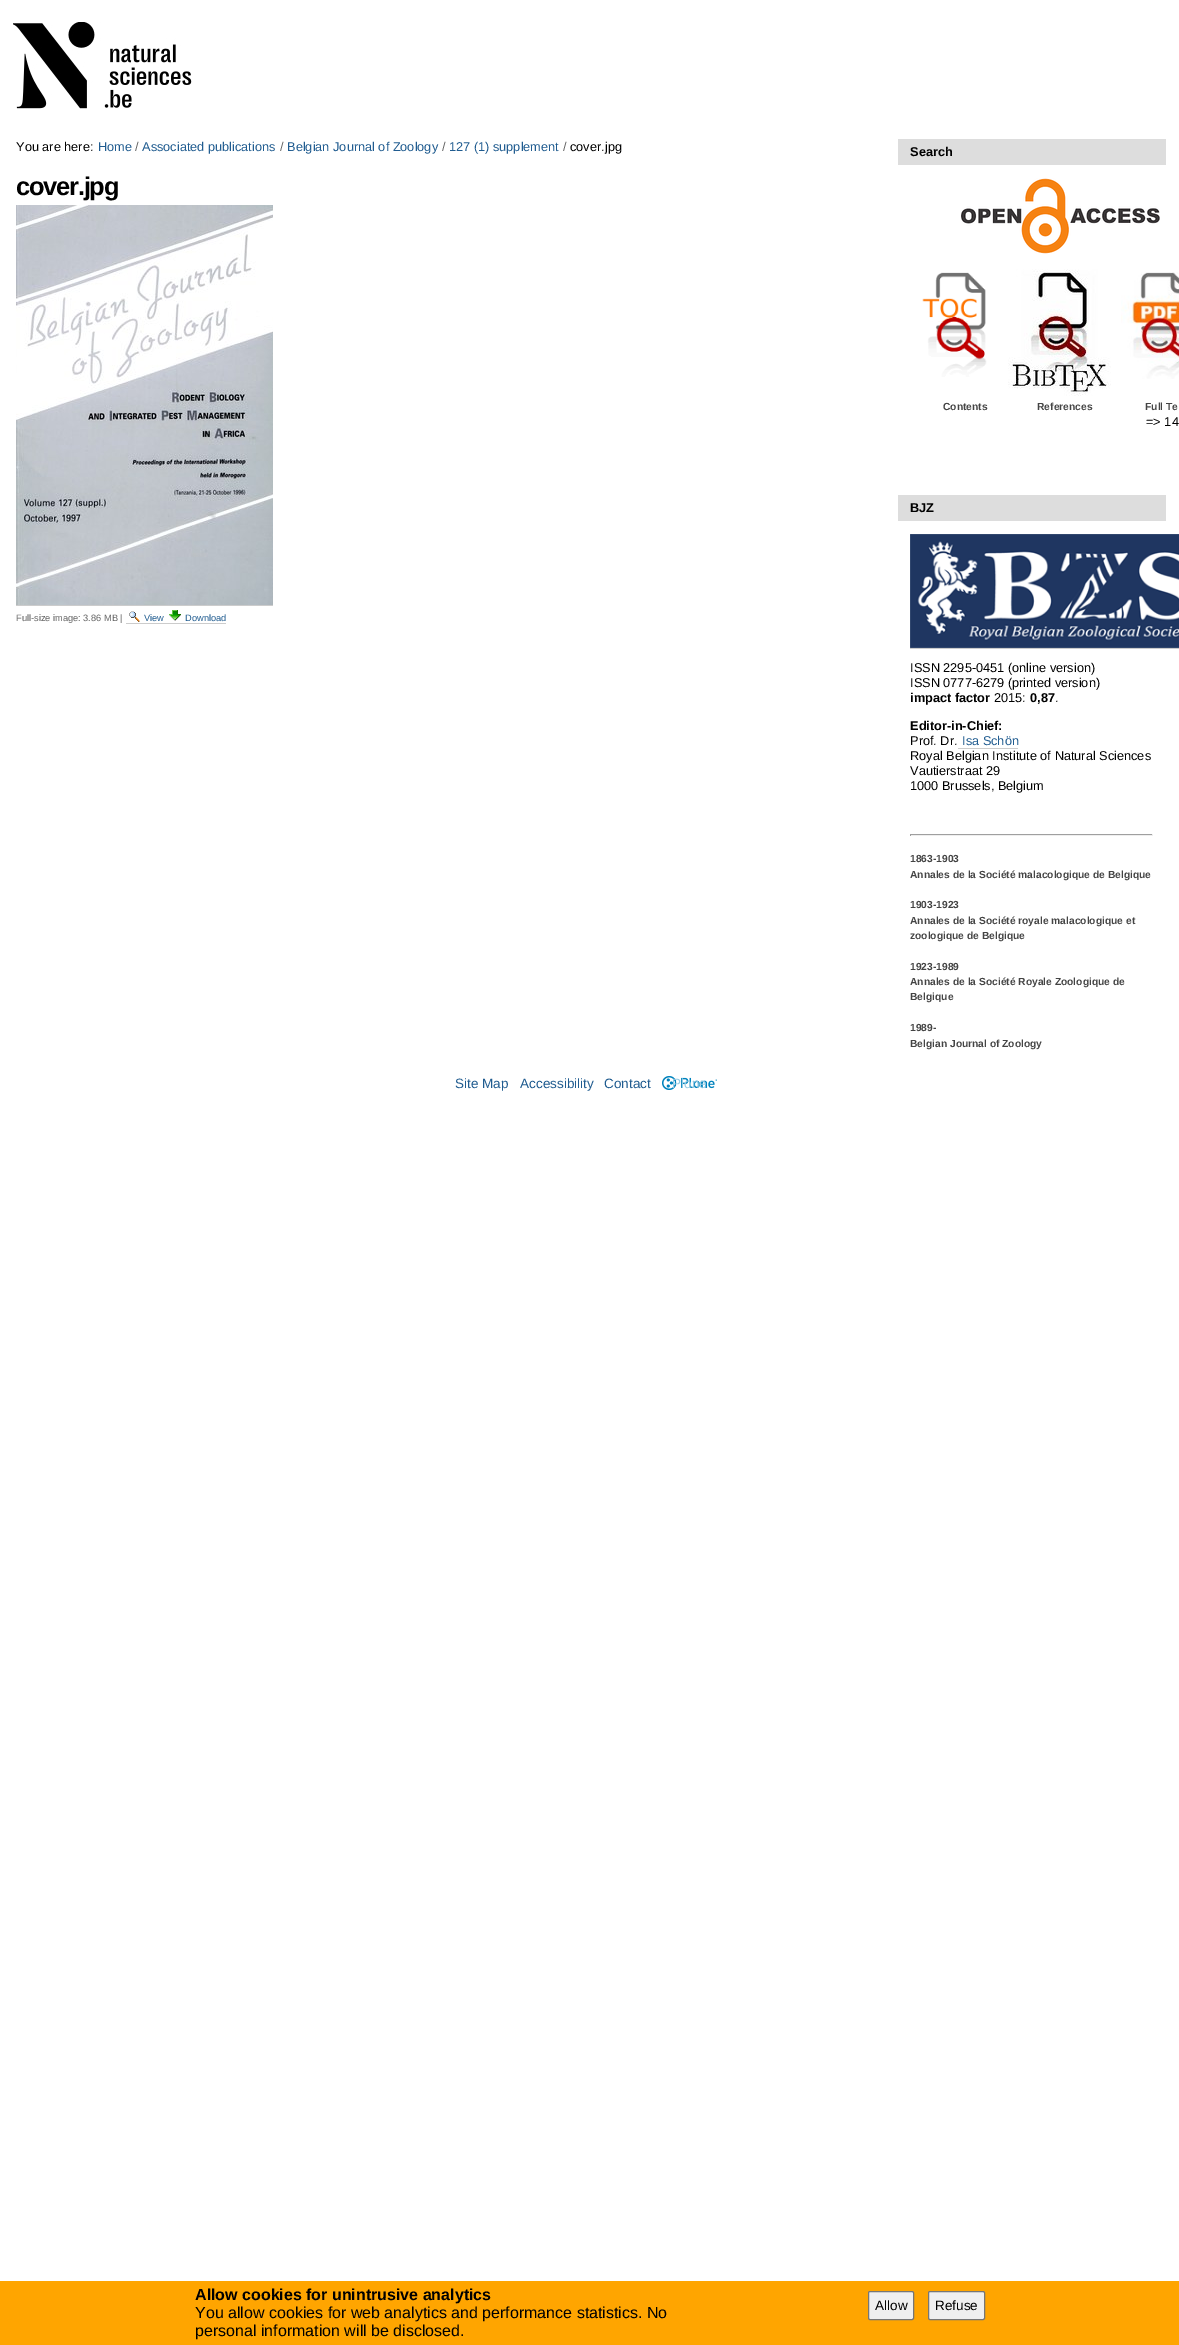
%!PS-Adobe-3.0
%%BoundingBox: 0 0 1179 2345
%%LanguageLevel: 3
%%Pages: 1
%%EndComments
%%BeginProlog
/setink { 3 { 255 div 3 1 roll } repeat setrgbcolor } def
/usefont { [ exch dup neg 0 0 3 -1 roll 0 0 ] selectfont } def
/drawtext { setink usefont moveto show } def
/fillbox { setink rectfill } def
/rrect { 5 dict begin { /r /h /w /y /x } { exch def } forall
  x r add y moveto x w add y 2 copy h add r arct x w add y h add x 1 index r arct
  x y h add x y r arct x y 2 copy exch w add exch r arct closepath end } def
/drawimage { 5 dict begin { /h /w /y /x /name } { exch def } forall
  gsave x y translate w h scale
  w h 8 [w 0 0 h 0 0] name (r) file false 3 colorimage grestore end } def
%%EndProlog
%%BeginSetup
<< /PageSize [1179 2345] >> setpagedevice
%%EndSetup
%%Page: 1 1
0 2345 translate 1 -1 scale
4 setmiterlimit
0 0 1179 2345 255 255 255 fillbox
(assets/img1.rgb) 13 22 179 87 drawimage
(You are here:) 16 151 /LiberationSans-Regular 12.75 0 0 0 drawtext
(Home) 98 151 /LiberationSans-Regular 12.75 32 92 144 drawtext
(/) 135 151 /LiberationSans-Regular 12.75 102 102 102 drawtext
(Associated publications) 142 151 /LiberationSans-Regular 12.75 32 92 144 drawtext
(/) 280 151 /LiberationSans-Regular 12.75 102 102 102 drawtext
(Belgian Journal of Zoology) 287 151 /LiberationSans-Regular 12.75 32 92 144 drawtext
(/) 442 151 /LiberationSans-Regular 12.75 102 102 102 drawtext
(127 \(1\) supplement) 449 151 /LiberationSans-Regular 12.75 32 92 144 drawtext
(/) 563 151 /LiberationSans-Regular 12.75 102 102 102 drawtext
(cover.jpg) 570 151 /LiberationSans-Regular 12.75 0 0 0 drawtext
/LiberationSans-Bold 25.5 usefont
16 195 moveto -1.25 0 (cover.jpg) ashow
(assets/img2.rgb) 16 205 257 400 drawimage
16 605 257 1 204 204 204 fillbox
(Full-size image: 3.86 MB |) 16 621 /LiberationSans-Regular 9.25 102 102 102 drawtext
(assets/img3.rgb) 129 611 11 11 drawimage
(View) 144 621 /LiberationSans-Regular 9.25 32 92 144 drawtext
126 623 100 1 204 204 204 fillbox
(assets/img4.rgb) 169 610 12 11 drawimage
(Download) 185 621 /LiberationSans-Regular 9.25 32 92 144 drawtext
898 139 268 26 221 221 221 fillbox
(Search) 910 156 /LiberationSans-Bold 12.75 0 0 0 drawtext
(assets/img5.rgb) 961 178 199 76 drawimage
(assets/img6.rgb) 922 272 65 105 drawimage
(assets/img7.rgb) 1008 269 103 127 drawimage
(assets/img8.rgb) 1121 272 58 107 drawimage
(Contents) 943 410 /LiberationSans-Bold 10.25 68 68 68 drawtext
(References) 1037 410 /LiberationSans-Bold 10.25 68 68 68 drawtext
(Full Te) 1145 410 /LiberationSans-Bold 10.25 68 68 68 drawtext
(=> 14) 1146 426 /LiberationSans-Regular 12.75 0 0 0 drawtext
898 495 268 26 221 221 221 fillbox
(BJZ) 910 512 /LiberationSans-Bold 12.75 0 0 0 drawtext
(assets/img9.rgb) 910 534 269 114 drawimage
910 648 269 1 204 204 204 fillbox
(ISSN 2295-0451 \(online version\)) 910 672 /LiberationSans-Regular 12.75 0 0 0 drawtext
(ISSN 0777-6279 \(printed version\)) 910 687 /LiberationSans-Regular 12.75 0 0 0 drawtext
(impact factor) 910 702 /LiberationSans-Bold 12.75 0 0 0 drawtext
(2015:) 994 702 /LiberationSans-Regular 12.75 0 0 0 drawtext
(0,87) 1030 702 /LiberationSans-Bold 12.75 0 0 0 drawtext
(.) 1055 702 /LiberationSans-Regular 12.75 0 0 0 drawtext
(Editor-in-Chief:) 910 730 /LiberationSans-Bold 12.75 0 0 0 drawtext
(Prof. Dr.) 910 745 /LiberationSans-Regular 12.75 0 0 0 drawtext
(Isa Schön) 962 745 /LiberationSans-Regular 12.75 32 92 144 drawtext
958 748 60 1 204 204 204 fillbox
(Royal Belgian Institute of Natural Sciences) 910 760 /LiberationSans-Regular 12.75 0 0 0 drawtext
(Vautierstraat 29) 910 775 /LiberationSans-Regular 12.75 0 0 0 drawtext
(1000 Brussels, Belgium) 910 790 /LiberationSans-Regular 12.75 0 0 0 drawtext
910 834 243 1 159 159 159 fillbox
1152 834 1 2 238 238 238 fillbox
910 835 243 1 238 238 238 fillbox
910 834 1 2 159 159 159 fillbox
(1863-1903) 910 862 /LiberationSans-Bold 10.25 68 68 68 drawtext
(Annales de la Société malacologique de Belgique) 910 878 /LiberationSans-Bold 10.25 68 68 68 drawtext
(1903-1923) 910 908 /LiberationSans-Bold 10.25 68 68 68 drawtext
(Annales de la Société royale malacologique et) 910 924 /LiberationSans-Bold 10.25 68 68 68 drawtext
(zoologique de Belgique) 910 939 /LiberationSans-Bold 10.25 68 68 68 drawtext
(1923-1989) 910 970 /LiberationSans-Bold 10.25 68 68 68 drawtext
(Annales de la Société Royale Zoologique de) 910 985 /LiberationSans-Bold 10.25 68 68 68 drawtext
(Belgique) 910 1000 /LiberationSans-Bold 10.25 68 68 68 drawtext
(1989-) 910 1031 /LiberationSans-Bold 10.25 68 68 68 drawtext
(Belgian Journal of Zoology) 910 1047 /LiberationSans-Bold 10.25 68 68 68 drawtext
(Site Map) 455 1088 /LiberationSans-Regular 13.5 32 92 144 drawtext
(Accessibility) 520 1088 /LiberationSans-Regular 13.5 32 92 144 drawtext
(Contact) 604 1088 /LiberationSans-Regular 13.5 32 92 144 drawtext
(assets/img10.rgb) 662 1076 55 14 drawimage
(Plone) 672 1088 /LiberationSans-Regular 13.5 150 203 228 drawtext
0 2281 1179 64 255 165 0 fillbox
(Allow cookies for unintrusive analytics) 195 2300 /LiberationSans-Bold 16 0 0 0 drawtext
(You allow cookies for web analytics and performance statistics. No) 195 2318 /LiberationSans-Regular 16 0 0 0 drawtext
(personal information will be disclosed.) 195 2336 /LiberationSans-Regular 16 0 0 0 drawtext
239 239 239 setink
868.5 2291.5 45 28 1.5 rrect gsave fill grestore
118 118 118 setink
stroke
(Allow) 875 2310 /LiberationSans-Regular 13.5 0 0 0 drawtext
239 239 239 setink
928.5 2291.5 56 28 1.5 rrect gsave fill grestore
118 118 118 setink
stroke
(Refuse) 935 2310 /LiberationSans-Regular 13.5 0 0 0 drawtext
showpage
%%EOF
